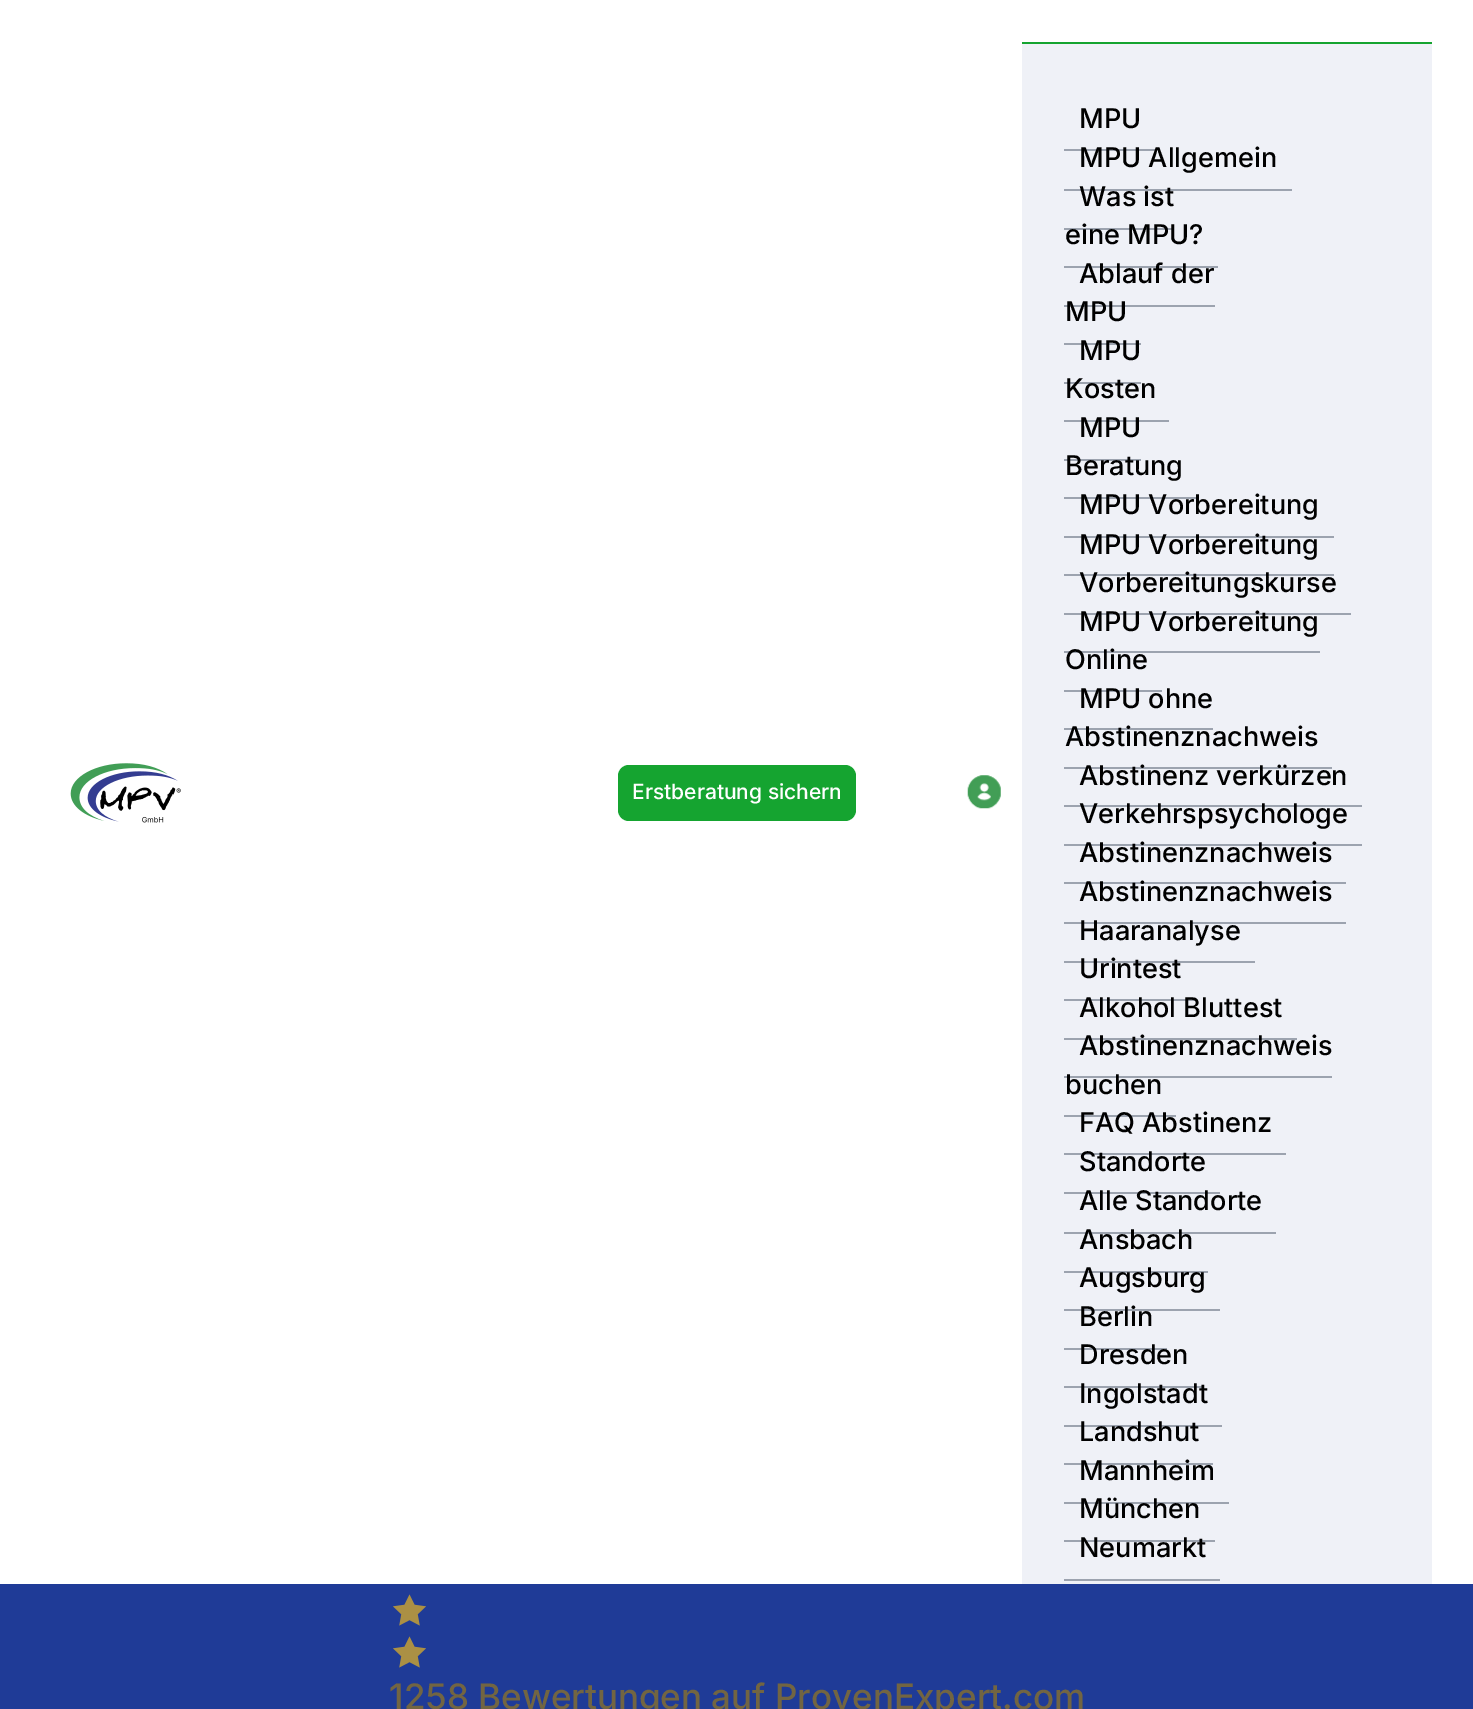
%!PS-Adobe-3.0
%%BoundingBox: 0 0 1473 1709
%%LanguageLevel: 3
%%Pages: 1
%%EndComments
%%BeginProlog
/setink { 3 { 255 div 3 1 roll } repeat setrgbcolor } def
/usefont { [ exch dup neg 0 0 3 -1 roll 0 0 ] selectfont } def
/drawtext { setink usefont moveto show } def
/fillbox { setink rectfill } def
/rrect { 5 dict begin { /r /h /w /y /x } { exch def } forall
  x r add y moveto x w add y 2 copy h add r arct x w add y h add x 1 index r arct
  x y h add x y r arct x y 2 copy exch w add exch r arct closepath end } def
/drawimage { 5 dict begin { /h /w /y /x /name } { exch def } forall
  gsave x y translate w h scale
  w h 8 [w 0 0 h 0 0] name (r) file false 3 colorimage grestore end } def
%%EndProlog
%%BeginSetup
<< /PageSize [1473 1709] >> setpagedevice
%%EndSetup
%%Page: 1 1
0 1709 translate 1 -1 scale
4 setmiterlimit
0 0 1473 1709 31 59 151 fillbox
0 0 1473 1584 255 255 255 fillbox
(assets/img1.rgb) 70 763 111 60 drawimage
21 164 48 setink
618 765 238 56 11 rrect fill
(Erstberatung sichern) 632 799 /Inter-Medium 21 255 255 255 drawtext
(assets/img2.rgb) 967 775 34 34 drawimage
1022 44 410 1540 239 241 247 fillbox
1022 42 410 2 21 164 48 fillbox
(MPU) 1079 128 /Inter-Medium 27.1 0 0 0 drawtext
1064 149 91 2 156 163 175 fillbox
(MPU Allgemein) 1079 167 /Inter-Medium 27.1 0 0 0 drawtext
1064 189 228 2 156 163 175 fillbox
(Was ist) 1079 206 /Inter-Medium 27.1 0 0 0 drawtext
1064 228 110 2 156 163 175 fillbox
(eine MPU?) 1065 244 /Inter-Medium 27.1 0 0 0 drawtext
1064 266 154 2 156 163 175 fillbox
(Ablauf der) 1079 283 /Inter-Medium 27.1 0 0 0 drawtext
1064 305 151 2 156 163 175 fillbox
(MPU) 1065 321 /Inter-Medium 27.1 0 0 0 drawtext
1064 343 77 2 156 163 175 fillbox
(MPU) 1079 360 /Inter-Medium 27.1 0 0 0 drawtext
1064 382 77 2 156 163 175 fillbox
(Kosten) 1065 398 /Inter-Medium 27.1 0 0 0 drawtext
1064 420 105 2 156 163 175 fillbox
(MPU) 1079 437 /Inter-Medium 27.1 0 0 0 drawtext
1064 459 77 2 156 163 175 fillbox
(Beratung) 1065 475 /Inter-Medium 27.1 0 0 0 drawtext
1064 497 133 2 156 163 175 fillbox
(MPU Vorbereitung) 1079 514 /Inter-Medium 27.1 0 0 0 drawtext
1064 536 270 2 156 163 175 fillbox
(MPU Vorbereitung) 1079 554 /Inter-Medium 27.1 0 0 0 drawtext
1064 574 270 2 156 163 175 fillbox
(Vorbereitungskurse) 1079 592 /Inter-Medium 27.1 0 0 0 drawtext
1064 613 287 2 156 163 175 fillbox
(MPU Vorbereitung) 1079 631 /Inter-Medium 27.1 0 0 0 drawtext
1064 651 256 2 156 163 175 fillbox
(Online) 1065 669 /Inter-Medium 27.1 0 0 0 drawtext
1064 690 98 2 156 163 175 fillbox
(MPU ohne) 1079 708 /Inter-Medium 27.1 0 0 0 drawtext
1064 728 149 2 156 163 175 fillbox
(Abstinenznachweis) 1065 746 /Inter-Medium 27.1 0 0 0 drawtext
1064 767 268 2 156 163 175 fillbox
(Abstinenz verkürzen) 1079 785 /Inter-Medium 27.1 0 0 0 drawtext
1064 805 298 2 156 163 175 fillbox
(Verkehrspsychologe) 1079 823 /Inter-Medium 27.1 0 0 0 drawtext
1064 844 298 2 156 163 175 fillbox
(Abstinenznachweis) 1079 862 /Inter-Medium 27.1 0 0 0 drawtext
1064 882 282 2 156 163 175 fillbox
(Abstinenznachweis) 1079 901 /Inter-Medium 27.1 0 0 0 drawtext
1064 922 282 2 156 163 175 fillbox
(Haaranalyse) 1079 940 /Inter-Medium 27.1 0 0 0 drawtext
1064 961 191 2 156 163 175 fillbox
(Urintest) 1079 978 /Inter-Medium 27.1 0 0 0 drawtext
1064 999 131 2 156 163 175 fillbox
(Alkohol Bluttest) 1079 1017 /Inter-Medium 27.1 0 0 0 drawtext
1064 1038 233 2 156 163 175 fillbox
(Abstinenznachweis) 1079 1055 /Inter-Medium 27.1 0 0 0 drawtext
1064 1076 268 2 156 163 175 fillbox
(buchen) 1065 1094 /Inter-Medium 27.1 0 0 0 drawtext
1064 1115 112 2 156 163 175 fillbox
(FAQ Abstinenz) 1079 1132 /Inter-Medium 27.1 0 0 0 drawtext
1064 1153 222 2 156 163 175 fillbox
(Standorte) 1079 1171 /Inter-Medium 27.1 0 0 0 drawtext
1064 1192 156 2 156 163 175 fillbox
(Alle Standorte) 1079 1210 /Inter-Medium 27.1 0 0 0 drawtext
1064 1232 212 2 156 163 175 fillbox
(Ansbach) 1079 1249 /Inter-Medium 27.1 0 0 0 drawtext
1064 1271 144 2 156 163 175 fillbox
(Augsburg) 1079 1287 /Inter-Medium 27.1 0 0 0 drawtext
1064 1309 156 2 156 163 175 fillbox
(Berlin) 1079 1326 /Inter-Medium 27.1 0 0 0 drawtext
1064 1348 103 2 156 163 175 fillbox
(Dresden) 1079 1364 /Inter-Medium 27.1 0 0 0 drawtext
1064 1386 138 2 156 163 175 fillbox
(Ingolstadt) 1079 1403 /Inter-Medium 27.1 0 0 0 drawtext
1064 1425 158 2 156 163 175 fillbox
(Landshut) 1079 1441 /Inter-Medium 27.1 0 0 0 drawtext
1064 1463 149 2 156 163 175 fillbox
(Mannheim) 1079 1480 /Inter-Medium 27.1 0 0 0 drawtext
1064 1502 165 2 156 163 175 fillbox
(München) 1079 1518 /Inter-Medium 27.1 0 0 0 drawtext
1064 1540 151 2 156 163 175 fillbox
(Neumarkt) 1079 1557 /Inter-Medium 27.1 0 0 0 drawtext
1064 1579 156 2 156 163 175 fillbox
(assets/img3.rgb) 393 1594 33 32 drawimage
(assets/img3.rgb) 393 1636 33 32 drawimage
(1258 Bewertungen auf ProvenExpert.com) 389 1709 /Inter-Medium 35 114 101 66 drawtext
showpage
%%EOF
